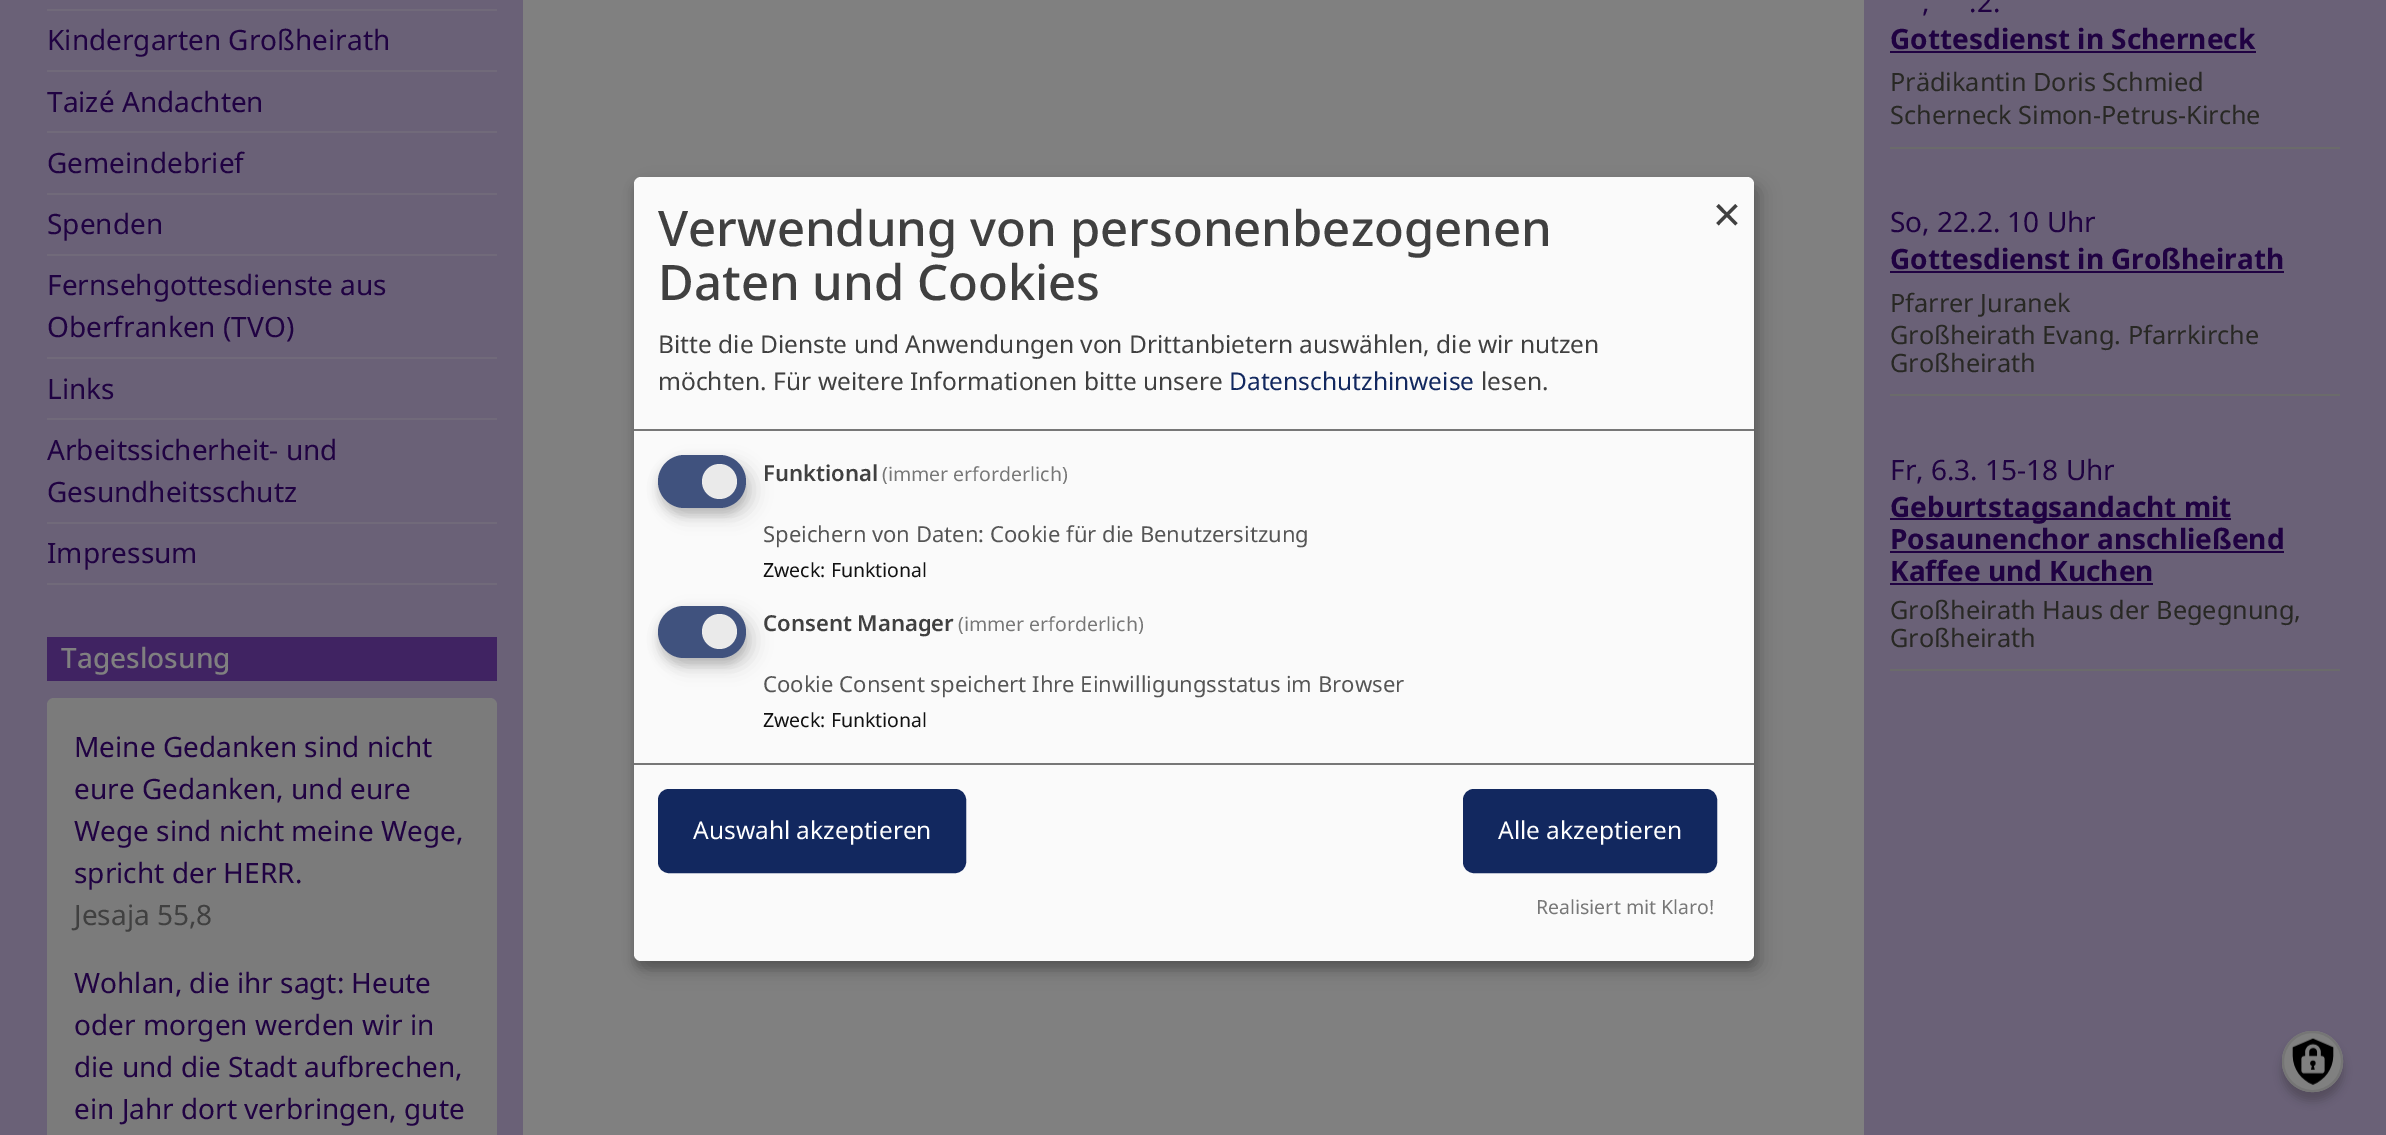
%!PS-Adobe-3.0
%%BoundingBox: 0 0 2386 1135
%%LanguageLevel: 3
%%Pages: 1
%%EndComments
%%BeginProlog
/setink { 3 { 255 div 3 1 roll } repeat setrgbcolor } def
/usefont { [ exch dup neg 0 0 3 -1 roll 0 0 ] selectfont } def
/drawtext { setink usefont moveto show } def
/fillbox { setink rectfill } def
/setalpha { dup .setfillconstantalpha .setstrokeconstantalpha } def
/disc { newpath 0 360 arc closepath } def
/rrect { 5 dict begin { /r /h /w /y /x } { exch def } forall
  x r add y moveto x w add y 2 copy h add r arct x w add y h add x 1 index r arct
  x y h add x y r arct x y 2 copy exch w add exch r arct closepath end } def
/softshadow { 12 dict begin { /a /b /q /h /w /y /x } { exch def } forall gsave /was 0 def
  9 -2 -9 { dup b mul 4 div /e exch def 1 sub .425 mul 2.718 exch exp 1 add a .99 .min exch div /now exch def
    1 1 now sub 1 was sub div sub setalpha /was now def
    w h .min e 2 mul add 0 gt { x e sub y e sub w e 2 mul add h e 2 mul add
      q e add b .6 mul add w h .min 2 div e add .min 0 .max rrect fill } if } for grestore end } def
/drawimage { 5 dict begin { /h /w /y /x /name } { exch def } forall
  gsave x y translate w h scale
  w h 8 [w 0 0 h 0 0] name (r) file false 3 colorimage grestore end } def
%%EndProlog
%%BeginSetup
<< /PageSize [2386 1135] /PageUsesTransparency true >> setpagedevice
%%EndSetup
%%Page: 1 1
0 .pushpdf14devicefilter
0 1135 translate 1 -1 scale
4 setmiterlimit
0 0 2386 1135 106 97 119 fillbox
47 9 450 2 113 106 122 fillbox
47 70 450 2 113 106 122 fillbox
(Kindergarten Großheirath) 47 50 /NotoSans-Regular 28 32 2 66 drawtext
47 131 450 2 113 106 122 fillbox
(Taizé Andachten) 47 112 /NotoSans-Regular 28 32 2 66 drawtext
47 193 450 2 113 106 122 fillbox
(Gemeindebrief) 47 173 /NotoSans-Regular 28 32 2 66 drawtext
47 254 450 2 113 106 122 fillbox
(Spenden) 47 234 /NotoSans-Regular 28 32 2 66 drawtext
47 357 450 2 113 106 122 fillbox
(Fernsehgottesdienste aus) 47 295 /NotoSans-Regular 28 32 2 66 drawtext
(Oberfranken \(TVO\)) 47 337 /NotoSans-Regular 28 32 2 66 drawtext
47 418 450 2 113 106 122 fillbox
(Links) 47 399 /NotoSans-Regular 28 32 2 66 drawtext
47 522 450 2 113 106 122 fillbox
(Arbeitssicherheit- und) 47 460 /NotoSans-Regular 28 32 2 66 drawtext
(Gesundheitsschutz) 47 502 /NotoSans-Regular 28 32 2 66 drawtext
47 583 450 2 113 106 122 fillbox
(Impressum) 47 563 /NotoSans-Regular 28 32 2 66 drawtext
47 637 450 44 64 35 98 fillbox
(Tageslosung) 61 668 /NotoSans-Medium 28 128 128 128 drawtext
123 123 123 setink
47 698 450 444 7 rrect fill
(Meine Gedanken sind nicht) 74 757 /NotoSans-Regular 28 32 2 66 drawtext
(eure Gedanken, und eure) 74 799 /NotoSans-Regular 28 32 2 66 drawtext
(Wege sind nicht meine Wege,) 74 841 /NotoSans-Regular 28 32 2 66 drawtext
(spricht der HERR.) 74 883 /NotoSans-Regular 28 32 2 66 drawtext
(Jesaja 55,8) 74 925 /NotoSans-Regular 28 64 64 64 drawtext
(Wohlan, die ihr sagt: Heute) 74 993 /NotoSans-Regular 28 32 2 66 drawtext
(oder morgen werden wir in) 74 1035 /NotoSans-Regular 28 32 2 66 drawtext
(die und die Stadt aufbrechen,) 74 1077 /NotoSans-Regular 28 32 2 66 drawtext
(ein Jahr dort verbringen, gute) 74 1119 /NotoSans-Regular 28 32 2 66 drawtext
523 0 1341 1135 128 128 128 fillbox
1890 147 450 2 107 107 107 fillbox
(,) 1922 12 /NotoSans-Regular 28 32 2 66 drawtext
(.2.) 1969 12 /NotoSans-Regular 28 32 2 66 drawtext
(Gottesdienst in Scherneck) 1890 49 /NotoSans-Bold 28 32 2 66 drawtext
1890 51 366 2 32 2 66 fillbox
(Prädikantin Doris Schmied) 1890 91 /NotoSans-Regular 25.25 40 40 36 drawtext
(Scherneck Simon-Petrus-Kirche) 1890 124 /NotoSans-Regular 25.25 40 40 36 drawtext
1890 394 450 2 107 107 107 fillbox
(So, 22.2. 10 Uhr) 1890 232 /NotoSans-Regular 28 32 2 66 drawtext
(Gottesdienst in Großheirath) 1890 269 /NotoSans-Bold 28 32 2 66 drawtext
1890 271 394 2 32 2 66 fillbox
(Pfarrer Juranek) 1890 312 /NotoSans-Regular 25.25 40 40 36 drawtext
(Großheirath Evang. Pfarrkirche) 1890 344 /NotoSans-Regular 25.25 40 40 36 drawtext
(Großheirath) 1890 372 /NotoSans-Regular 25.25 40 40 36 drawtext
1890 669 450 2 107 107 107 fillbox
(Fr, 6.3. 15-18 Uhr) 1890 480 /NotoSans-Regular 28 32 2 66 drawtext
1890 518 341 2 32 2 66 fillbox
(Geburtstagsandacht mit) 1890 517 /NotoSans-Bold 28 32 2 66 drawtext
(Posaunenchor anschließend) 1890 549 /NotoSans-Bold 28 32 2 66 drawtext
1890 551 394 2 32 2 66 fillbox
(Kaffee und Kuchen) 1890 581 /NotoSans-Bold 28 32 2 66 drawtext
1890 583 263 2 32 2 66 fillbox
(Großheirath Haus der Begegnung,) 1890 619 /NotoSans-Regular 25.25 40 40 36 drawtext
(Großheirath) 1890 647 /NotoSans-Regular 25.25 40 40 36 drawtext
0 0 0 setink
642 186 1120 784 7 9 0.19 softshadow
634 184 1120 784 7 5 0.2 softshadow
250 250 250 setink
634 177 1120 784 7 rrect fill
634 429 1120 2 119 119 119 fillbox
(Verwendung von personenbezogenen) 658 246 /NotoSans-Medium 49 64 64 64 drawtext
(Daten und Cookies) 658 300 /NotoSans-Medium 49 64 64 64 drawtext
(Bitte die Dienste und Anwendungen von Drittanbietern auswählen, die wir nutzen) 658 353 /NotoSans-Regular 24.5 64 64 64 drawtext
(möchten. Für weitere Informationen bitte unsere) 658 390 /NotoSans-Regular 24.5 64 64 64 drawtext
(Datenschutzhinweise) 1229 390 /NotoSans-Regular 24.5 18 40 95 drawtext
(lesen.) 1481 390 /NotoSans-Regular 24.5 64 64 64 drawtext
(×) 1713 232 /NotoSans-Regular 49 64 64 64 drawtext
0 0 0 setink
667 464 87 52 26 9 0.15 softshadow
50 50 50 setink
658 462 88 53 26.5 5 0.2 softshadow
64 82 126 setink
658 455 88 53 26.5 rrect fill
234 234 234 setink
719.5 481.5 17.5 disc fill
(Funktional) 763 481 /NotoSans-SemiBold 22.05 64 64 64 drawtext
(\(immer erforderlich\)) 882 481 /NotoSans-Regular 19.5 119 119 119 drawtext
(Speichern von Daten: Cookie für die Benutzersitzung) 763 542 /NotoSans-Regular 22.05 85 85 85 drawtext
(Zweck: Funktional) 763 577 /NotoSans-Regular 19.5 17 17 17 drawtext
0 0 0 setink
667 614 87 53 26.5 9 0.15 softshadow
50 50 50 setink
658 613 88 52 26 5 0.2 softshadow
64 82 126 setink
658 606 88 52 26 rrect fill
234 234 234 setink
719.5 631.5 17.5 disc fill
(Consent Manager) 763 631 /NotoSans-SemiBold 22.05 64 64 64 drawtext
(\(immer erforderlich\)) 958 631 /NotoSans-Regular 19.5 119 119 119 drawtext
(Cookie Consent speichert Ihre Einwilligungsstatus im Browser) 763 692 /NotoSans-Regular 22.05 85 85 85 drawtext
(Zweck: Funktional) 763 727 /NotoSans-Regular 19.5 17 17 17 drawtext
634 763 1120 2 119 119 119 fillbox
18 40 95 setink
660.5 791.5 303 79 8.5 rrect gsave fill grestore
5 setlinewidth
stroke
(Auswahl akzeptieren) 693 839 /NotoSans-Regular 24.5 255 255 255 drawtext
18 40 95 setink
1465.5 791.5 249 79 8.5 rrect gsave fill grestore
stroke
(Alle akzeptieren) 1498 839 /NotoSans-Regular 24.5 255 255 255 drawtext
(Realisiert mit Klaro!) 1536 914 /NotoSans-Regular 19.5 119 119 119 drawtext
0 0 0 setink
2282 1040 61 61 30.5 4.5 0.2 softshadow
128 128 128 setink
2312.5 1061.5 30.5 disc fill
(assets/img1.rgb) 2292 1038 42 47 drawimage
117 117 117 setink
2 setlinewidth
2312.5 1061.5 29.5 disc stroke
.poppdf14devicefilter showpage
%%EOF
